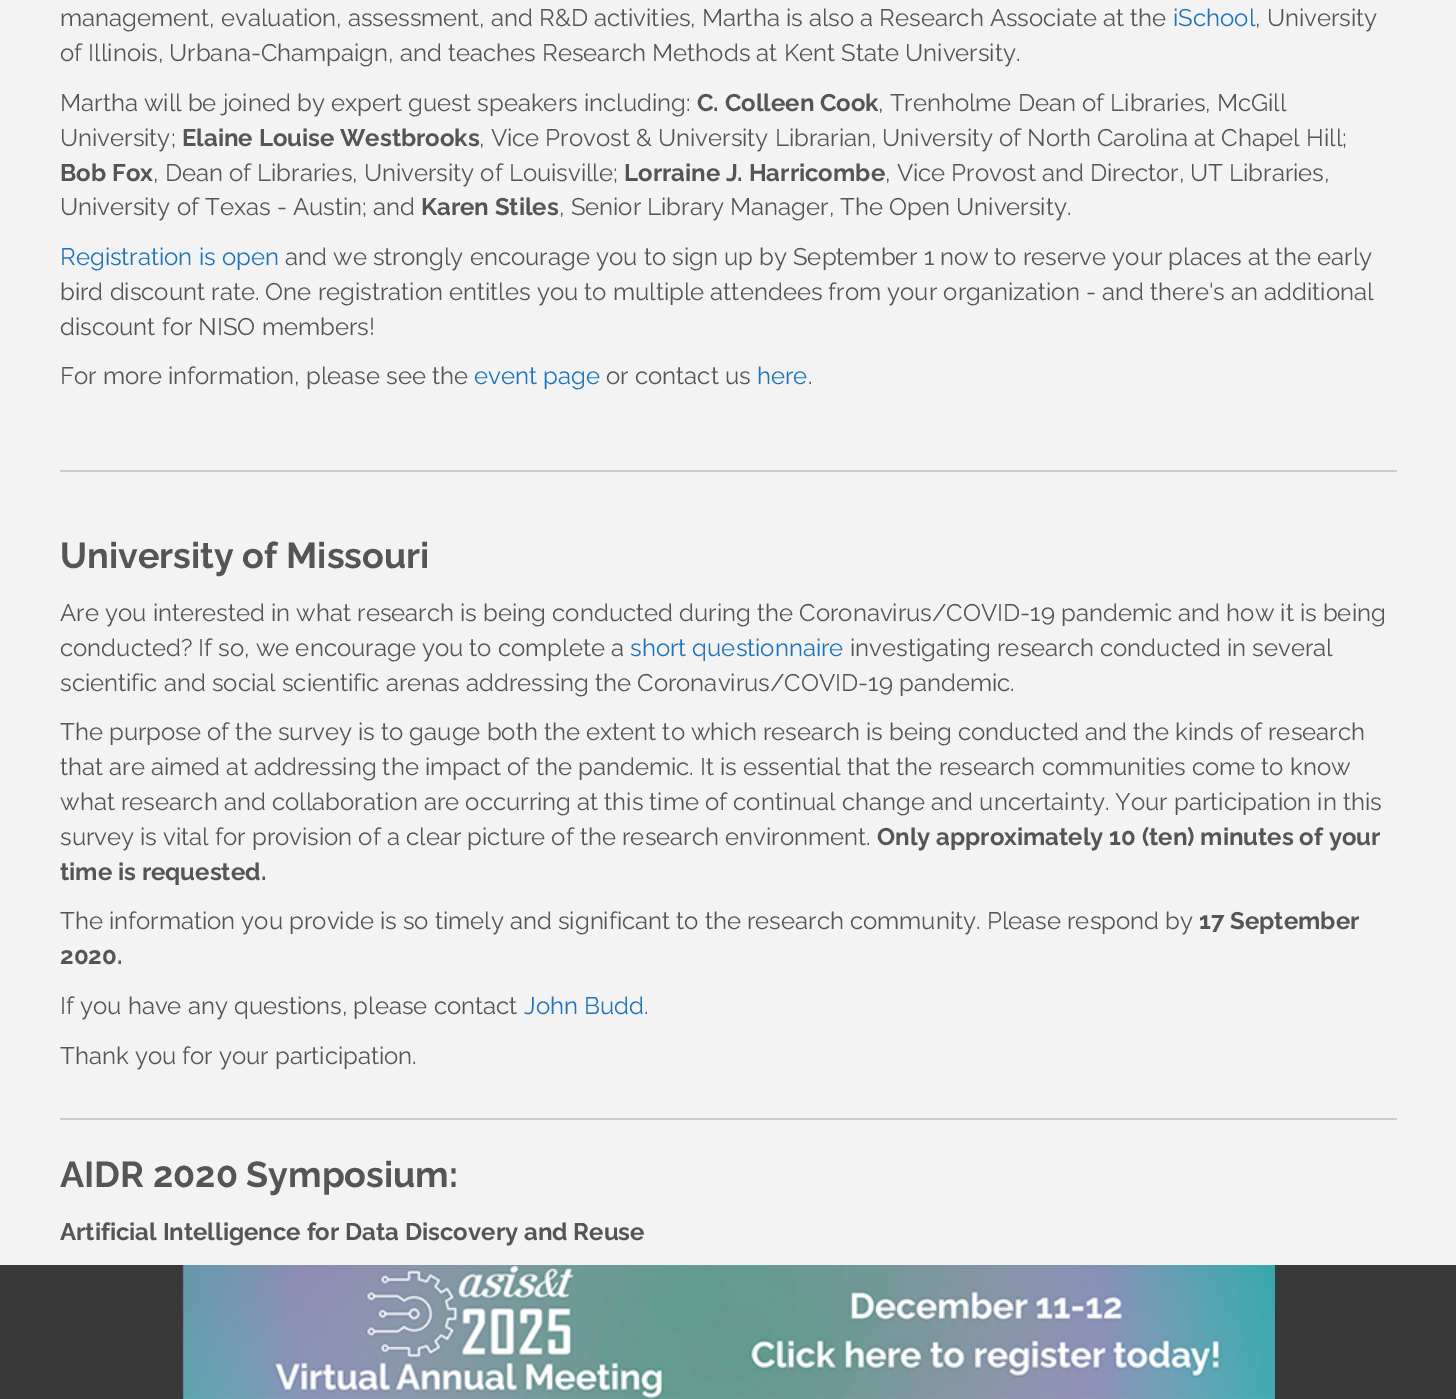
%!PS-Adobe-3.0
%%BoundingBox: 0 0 1456 1399
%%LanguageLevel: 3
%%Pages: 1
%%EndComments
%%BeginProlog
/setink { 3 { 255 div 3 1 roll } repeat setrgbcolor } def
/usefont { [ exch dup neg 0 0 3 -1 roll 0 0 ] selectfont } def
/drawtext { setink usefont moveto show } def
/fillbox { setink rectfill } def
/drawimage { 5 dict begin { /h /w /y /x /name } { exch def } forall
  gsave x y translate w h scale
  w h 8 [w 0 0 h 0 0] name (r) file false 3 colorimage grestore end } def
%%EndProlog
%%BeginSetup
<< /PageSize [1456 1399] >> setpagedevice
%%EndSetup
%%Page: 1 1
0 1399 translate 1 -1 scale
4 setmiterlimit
0 0 1456 1399 243 243 243 fillbox
0 1265 1456 134 57 57 57 fillbox
(management, evaluation, assessment, and R&D activities, Martha is also a Research Associate at the) 60 26 /Raleway-Regular 24 85 85 85 drawtext
(iSchool) 1173 26 /Raleway-Regular 24 30 115 190 drawtext
(, University) 1255 26 /Raleway-Regular 24 85 85 85 drawtext
(of Illinois, Urbana-Champaign, and teaches Research Methods at Kent State University.) 60 61 /Raleway-Regular 24 85 85 85 drawtext
(Martha will be joined by expert guest speakers including:) 60 111 /Raleway-Regular 24 85 85 85 drawtext
(C. Colleen Cook) 697 111 /Raleway-Bold 24 85 85 85 drawtext
(, Trenholme Dean of Libraries, McGill) 878 111 /Raleway-Regular 24 85 85 85 drawtext
(University;) 60 146 /Raleway-Regular 24 85 85 85 drawtext
(Elaine Louise Westbrooks) 182 146 /Raleway-Bold 24 85 85 85 drawtext
(, Vice Provost & University Librarian, University of North Carolina at Chapel Hill;) 479 146 /Raleway-Regular 24 85 85 85 drawtext
(Bob Fox) 60 181 /Raleway-Bold 24 85 85 85 drawtext
(, Dean of Libraries, University of Louisville;) 153 181 /Raleway-Regular 24 85 85 85 drawtext
(Lorraine J. Harricombe) 624 181 /Raleway-Bold 24 85 85 85 drawtext
(, Vice Provost and Director, UT Libraries,) 885 181 /Raleway-Regular 24 85 85 85 drawtext
(University of Texas - Austin; and) 60 215 /Raleway-Regular 24 85 85 85 drawtext
(Karen Stiles) 421 215 /Raleway-Bold 24 85 85 85 drawtext
(, Senior Library Manager, The Open University.) 559 215 /Raleway-Regular 24 85 85 85 drawtext
(Registration is open) 60 265 /Raleway-Regular 24 30 115 190 drawtext
(and we strongly encourage you to sign up by September 1 now to reserve your places at the early) 285 265 /Raleway-Regular 24 85 85 85 drawtext
(bird discount rate. One registration entitles you to multiple attendees from your organization - and there's an additional) 60 300 /Raleway-Regular 24 85 85 85 drawtext
(discount for NISO members!) 60 335 /Raleway-Regular 24 85 85 85 drawtext
(For more information, please see the) 60 384 /Raleway-Regular 24 85 85 85 drawtext
(event page) 474 384 /Raleway-Regular 24 30 115 190 drawtext
(or contact us) 606 384 /Raleway-Regular 24 85 85 85 drawtext
(here) 757 384 /Raleway-Regular 24 30 115 190 drawtext
(.) 808 384 /Raleway-Regular 24 85 85 85 drawtext
60 470 1337 2 204 204 204 fillbox
(University of Missouri) 60 568 /Raleway-Bold 36 85 85 85 drawtext
(Are you interested in what research is being conducted during the Coronavirus/COVID-19 pandemic and how it is being) 60 621 /Raleway-Regular 24 85 85 85 drawtext
(conducted? If so, we encourage you to complete a) 60 656 /Raleway-Regular 24 85 85 85 drawtext
(short questionnaire) 630 656 /Raleway-Regular 24 30 115 190 drawtext
(investigating research conducted in several) 850 656 /Raleway-Regular 24 85 85 85 drawtext
(scientific and social scientific arenas addressing the Coronavirus/COVID-19 pandemic.) 60 691 /Raleway-Regular 24 85 85 85 drawtext
(The purpose of the survey is to gauge both the extent to which research is being conducted and the kinds of research) 60 740 /Raleway-Regular 24 85 85 85 drawtext
(that are aimed at addressing the impact of the pandemic. It is essential that the research communities come to know) 60 775 /Raleway-Regular 24 85 85 85 drawtext
(what research and collaboration are occurring at this time of continual change and uncertainty. Your participation in this) 60 810 /Raleway-Regular 24 85 85 85 drawtext
(survey is vital for provision of a clear picture of the research environment.) 60 845 /Raleway-Regular 24 85 85 85 drawtext
(Only approximately 10 \(ten\) minutes of your) 877 845 /Raleway-Bold 24 85 85 85 drawtext
(time is requested.) 60 880 /Raleway-Bold 24 85 85 85 drawtext
(The information you provide is so timely and significant to the research community. Please respond by) 60 929 /Raleway-Regular 24 85 85 85 drawtext
(17 September) 1199 929 /Raleway-Bold 24 85 85 85 drawtext
(2020.) 60 964 /Raleway-Bold 24 85 85 85 drawtext
(If you have any questions, please contact) 60 1014 /Raleway-Regular 24 85 85 85 drawtext
(John Budd.) 524 1014 /Raleway-Regular 24 30 115 190 drawtext
(Thank you for your participation.) 60 1064 /Raleway-Regular 24 85 85 85 drawtext
60 1118 1337 2 204 204 204 fillbox
(AIDR 2020 Symposium:) 60 1187 /Raleway-Bold 36 85 85 85 drawtext
(Artificial Intelligence for Data Discovery and Reuse) 60 1240 /Raleway-Bold 24 85 85 85 drawtext
(assets/img1.rgb) 182 1265 1093 134 drawimage
showpage
%%EOF
